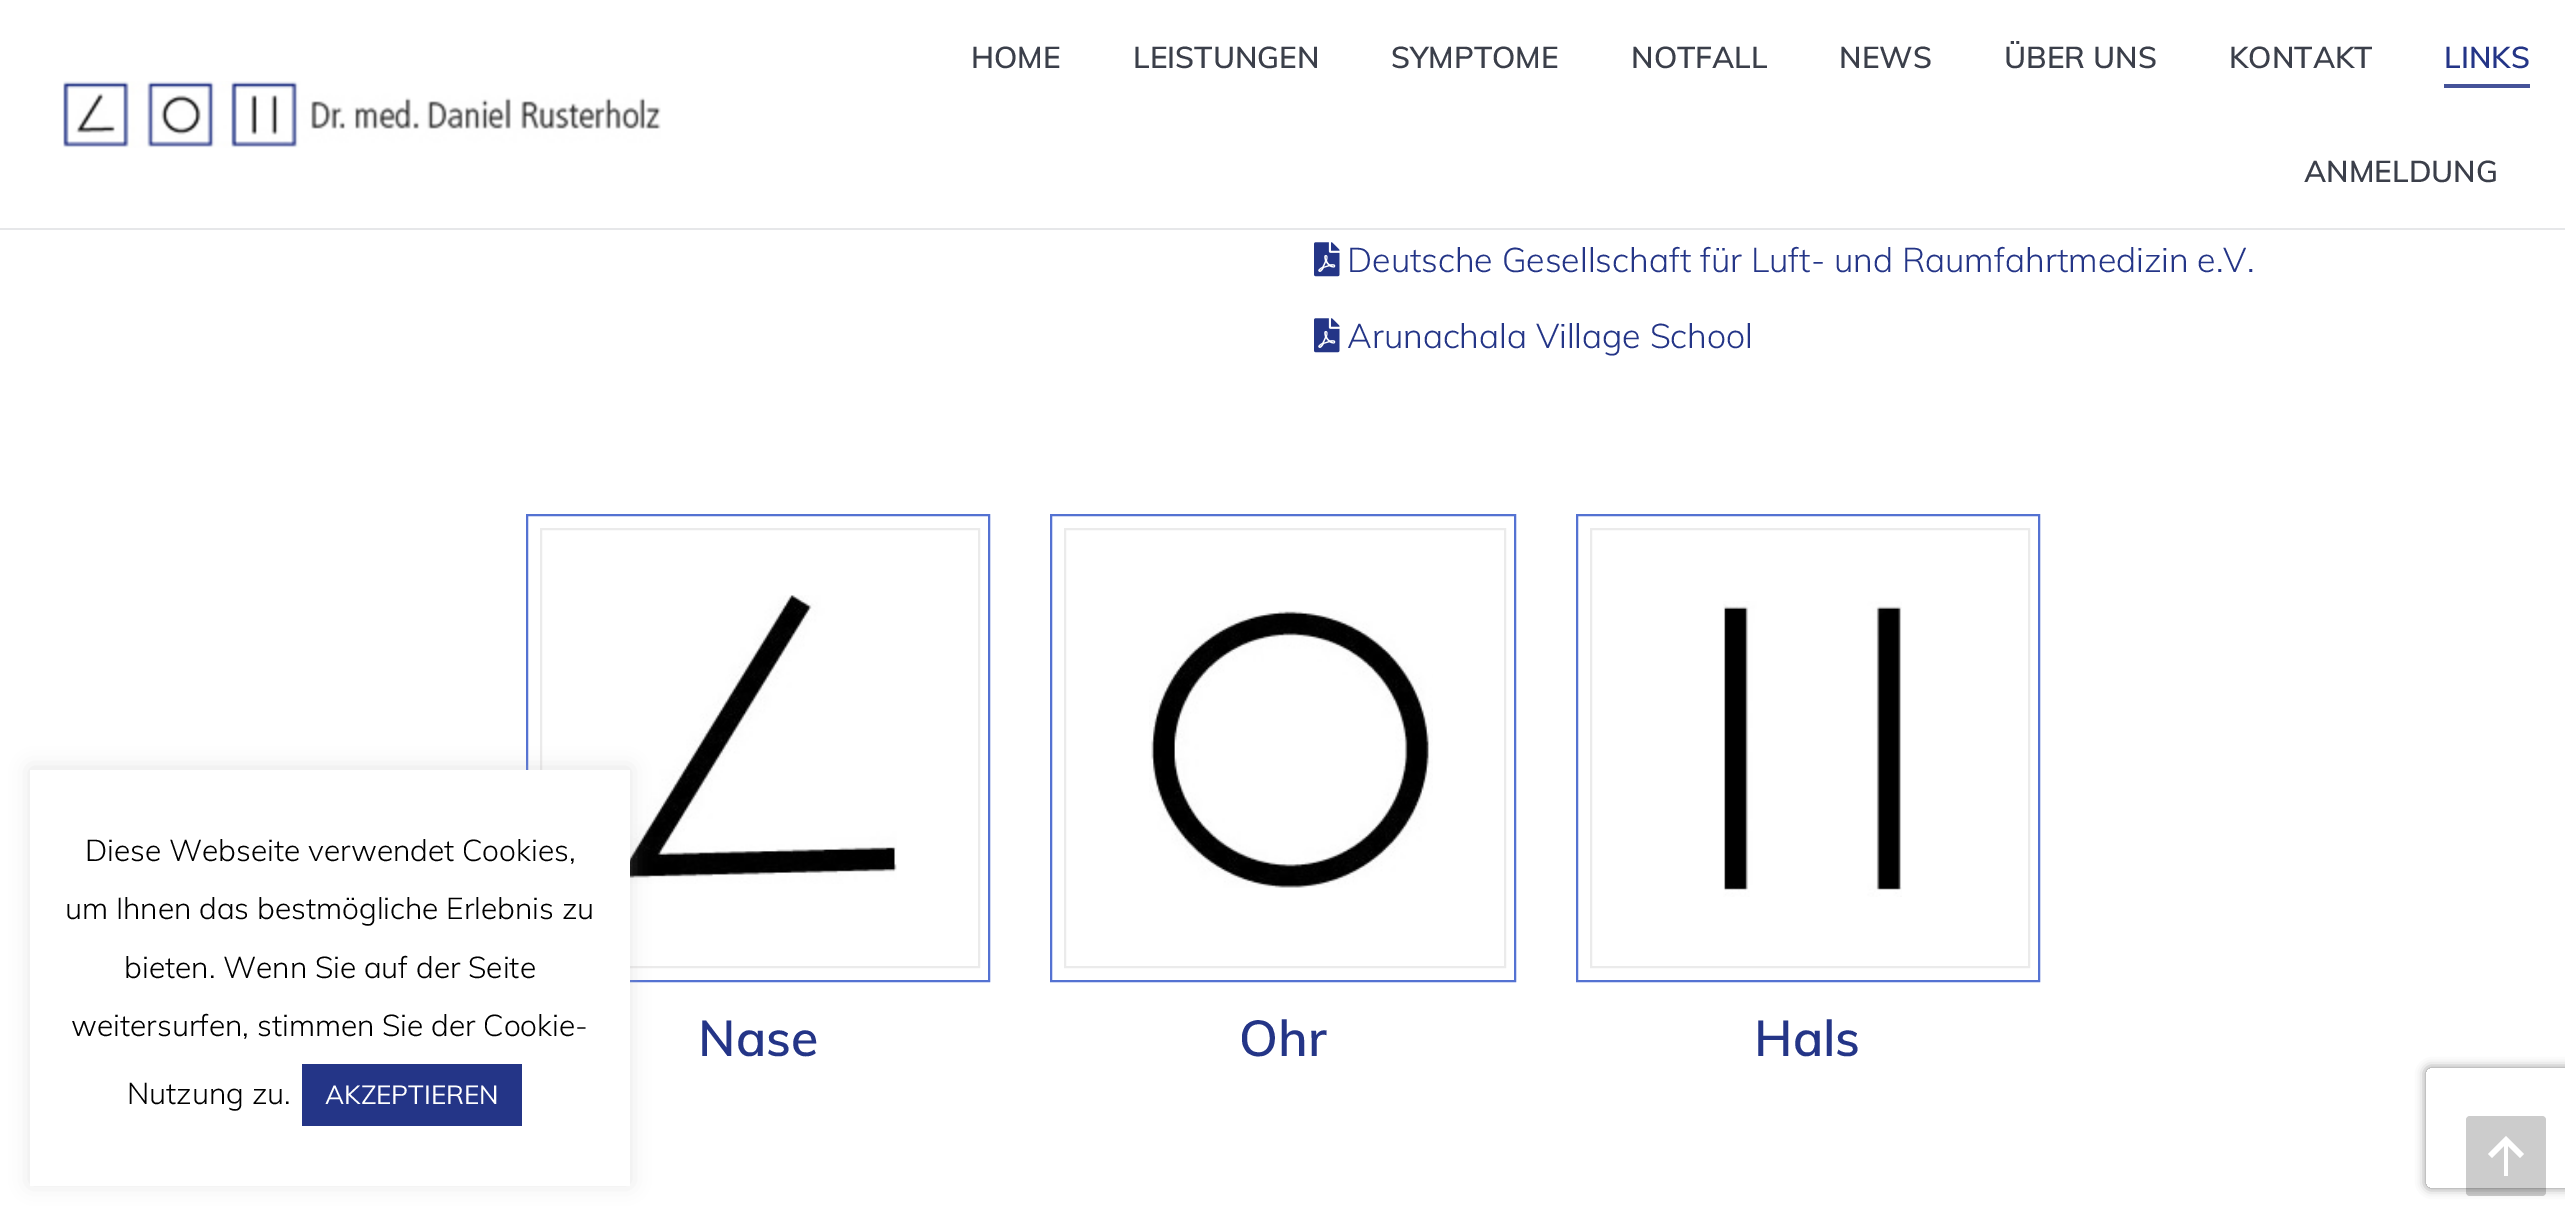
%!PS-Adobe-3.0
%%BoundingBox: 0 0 2565 1215
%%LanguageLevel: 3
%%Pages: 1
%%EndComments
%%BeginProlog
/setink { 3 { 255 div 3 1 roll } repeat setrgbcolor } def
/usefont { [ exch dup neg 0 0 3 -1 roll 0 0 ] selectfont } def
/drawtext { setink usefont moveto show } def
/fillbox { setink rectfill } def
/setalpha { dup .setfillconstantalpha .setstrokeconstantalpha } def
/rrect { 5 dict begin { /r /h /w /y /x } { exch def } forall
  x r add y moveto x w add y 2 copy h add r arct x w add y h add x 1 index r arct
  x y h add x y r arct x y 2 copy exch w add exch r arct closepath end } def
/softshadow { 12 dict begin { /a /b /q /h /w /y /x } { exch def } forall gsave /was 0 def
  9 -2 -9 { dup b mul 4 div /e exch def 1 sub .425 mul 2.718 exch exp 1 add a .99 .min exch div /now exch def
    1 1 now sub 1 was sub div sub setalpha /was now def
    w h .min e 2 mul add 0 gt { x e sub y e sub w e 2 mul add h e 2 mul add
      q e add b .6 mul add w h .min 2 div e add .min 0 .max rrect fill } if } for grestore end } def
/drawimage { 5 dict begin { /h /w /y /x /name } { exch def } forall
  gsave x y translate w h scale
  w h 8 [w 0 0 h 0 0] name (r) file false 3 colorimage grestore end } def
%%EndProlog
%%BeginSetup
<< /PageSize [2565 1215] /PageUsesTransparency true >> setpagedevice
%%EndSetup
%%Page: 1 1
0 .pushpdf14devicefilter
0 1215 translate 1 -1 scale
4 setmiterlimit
0 0 2565 1215 255 255 255 fillbox
0 228 2565 2 230 231 233 fillbox
(assets/img1.rgb) 63 81 598 67 drawimage
(HOME) 971 68 /Muli-SemiBold 30 59 63 74 drawtext
(LEISTUNGEN) 1133 68 /Muli-SemiBold 30 59 63 74 drawtext
(SYMPTOME) 1391 68 /Muli-SemiBold 30 59 63 74 drawtext
(NOTFALL) 1631 68 /Muli-SemiBold 30 59 63 74 drawtext
(NEWS) 1839 68 /Muli-SemiBold 30 59 63 74 drawtext
(ÜBER UNS) 2004 68 /Muli-SemiBold 30 59 63 74 drawtext
(KONTAKT) 2229 68 /Muli-SemiBold 30 59 63 74 drawtext
(LINKS) 2444 68 /Muli-SemiBold 30 36 53 135 drawtext
2444 84 86 4 69 83 153 fillbox
(ANMELDUNG) 2304 182 /Muli-SemiBold 30 59 63 74 drawtext
84 114 210 setink
2 setlinewidth
527 515 462 466 rectstroke
235 235 235 setink
541 529 438 438 rectstroke
(assets/img3.rgb) 615 595 282 289 drawimage
172 171 171 setink
30 768 600 416 0 10 0.3 softshadow
30 770 600 416 255 255 255 fillbox
(Diese Webseite verwendet Cookies,) 85 861 /Muli-Light 30 0 0 0 drawtext
(um Ihnen das bestmögliche Erlebnis zu) 65 919 /Muli-Light 30 0 0 0 drawtext
(bieten. Wenn Sie auf der Seite) 124 978 /Muli-Light 30 0 0 0 drawtext
(weitersurfen, stimmen Sie der Cookie-) 71 1036 /Muli-Light 30 0 0 0 drawtext
(Nutzung zu.) 127 1104 /Muli-Light 30 0 0 0 drawtext
302 1064 220 62 36 53 135 fillbox
(AKZEPTIEREN) 325 1104 /Muli-Regular 26 255 255 255 drawtext
(assets/img2.rgb) 1314 242 26 35 drawimage
(Deutsche Gesellschaft für Luft- und Raumfahrtmedizin e.V.) 1347 272 /Muli-Light 34 36 53 135 drawtext
(assets/img2.rgb) 1314 318 26 35 drawimage
(Arunachala Village School) 1347 348 /Muli-Light 34 36 53 135 drawtext
(Nase) 698 1056 /Muli-SemiBold 50 36 53 135 drawtext
84 114 210 setink
1051 515 464 466 rectstroke
235 235 235 setink
1065 529 440 438 rectstroke
(assets/img4.rgb) 1149 610 284 278 drawimage
(Ohr) 1239 1056 /Muli-SemiBold 50 36 53 135 drawtext
84 114 210 setink
1577 515 462 466 rectstroke
235 235 235 setink
1591 529 438 438 rectstroke
(assets/img5.rgb) 1723 601 179 296 drawimage
(Hals) 1754 1056 /Muli-SemiBold 50 36 53 135 drawtext
gsave
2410 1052 moveto 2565 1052 lineto 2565 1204 lineto 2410 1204 lineto closepath 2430 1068 moveto 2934 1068 lineto 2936 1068 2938 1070 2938 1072 curveto 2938 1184 lineto 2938 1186 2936 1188 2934 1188 curveto 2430 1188 lineto 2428 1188 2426 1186 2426 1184 curveto 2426 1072 lineto 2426 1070 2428 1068 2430 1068 curveto closepath eoclip newpath
128 128 128 setink
2426 1068 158 120 4 5 1 softshadow
grestore
0.2 setalpha
0 0 0 setink
2466 1116 80 80 4 rrect fill
1 setalpha
255 255 255 setink
2488 1154 moveto 2492 1158 lineto 2504 1146 lineto 2504 1176 lineto 2508 1176 lineto 2508 1146 lineto 2520 1158 lineto 2524 1154 lineto 2506 1136 lineto closepath fill
.poppdf14devicefilter showpage
%%EOF
